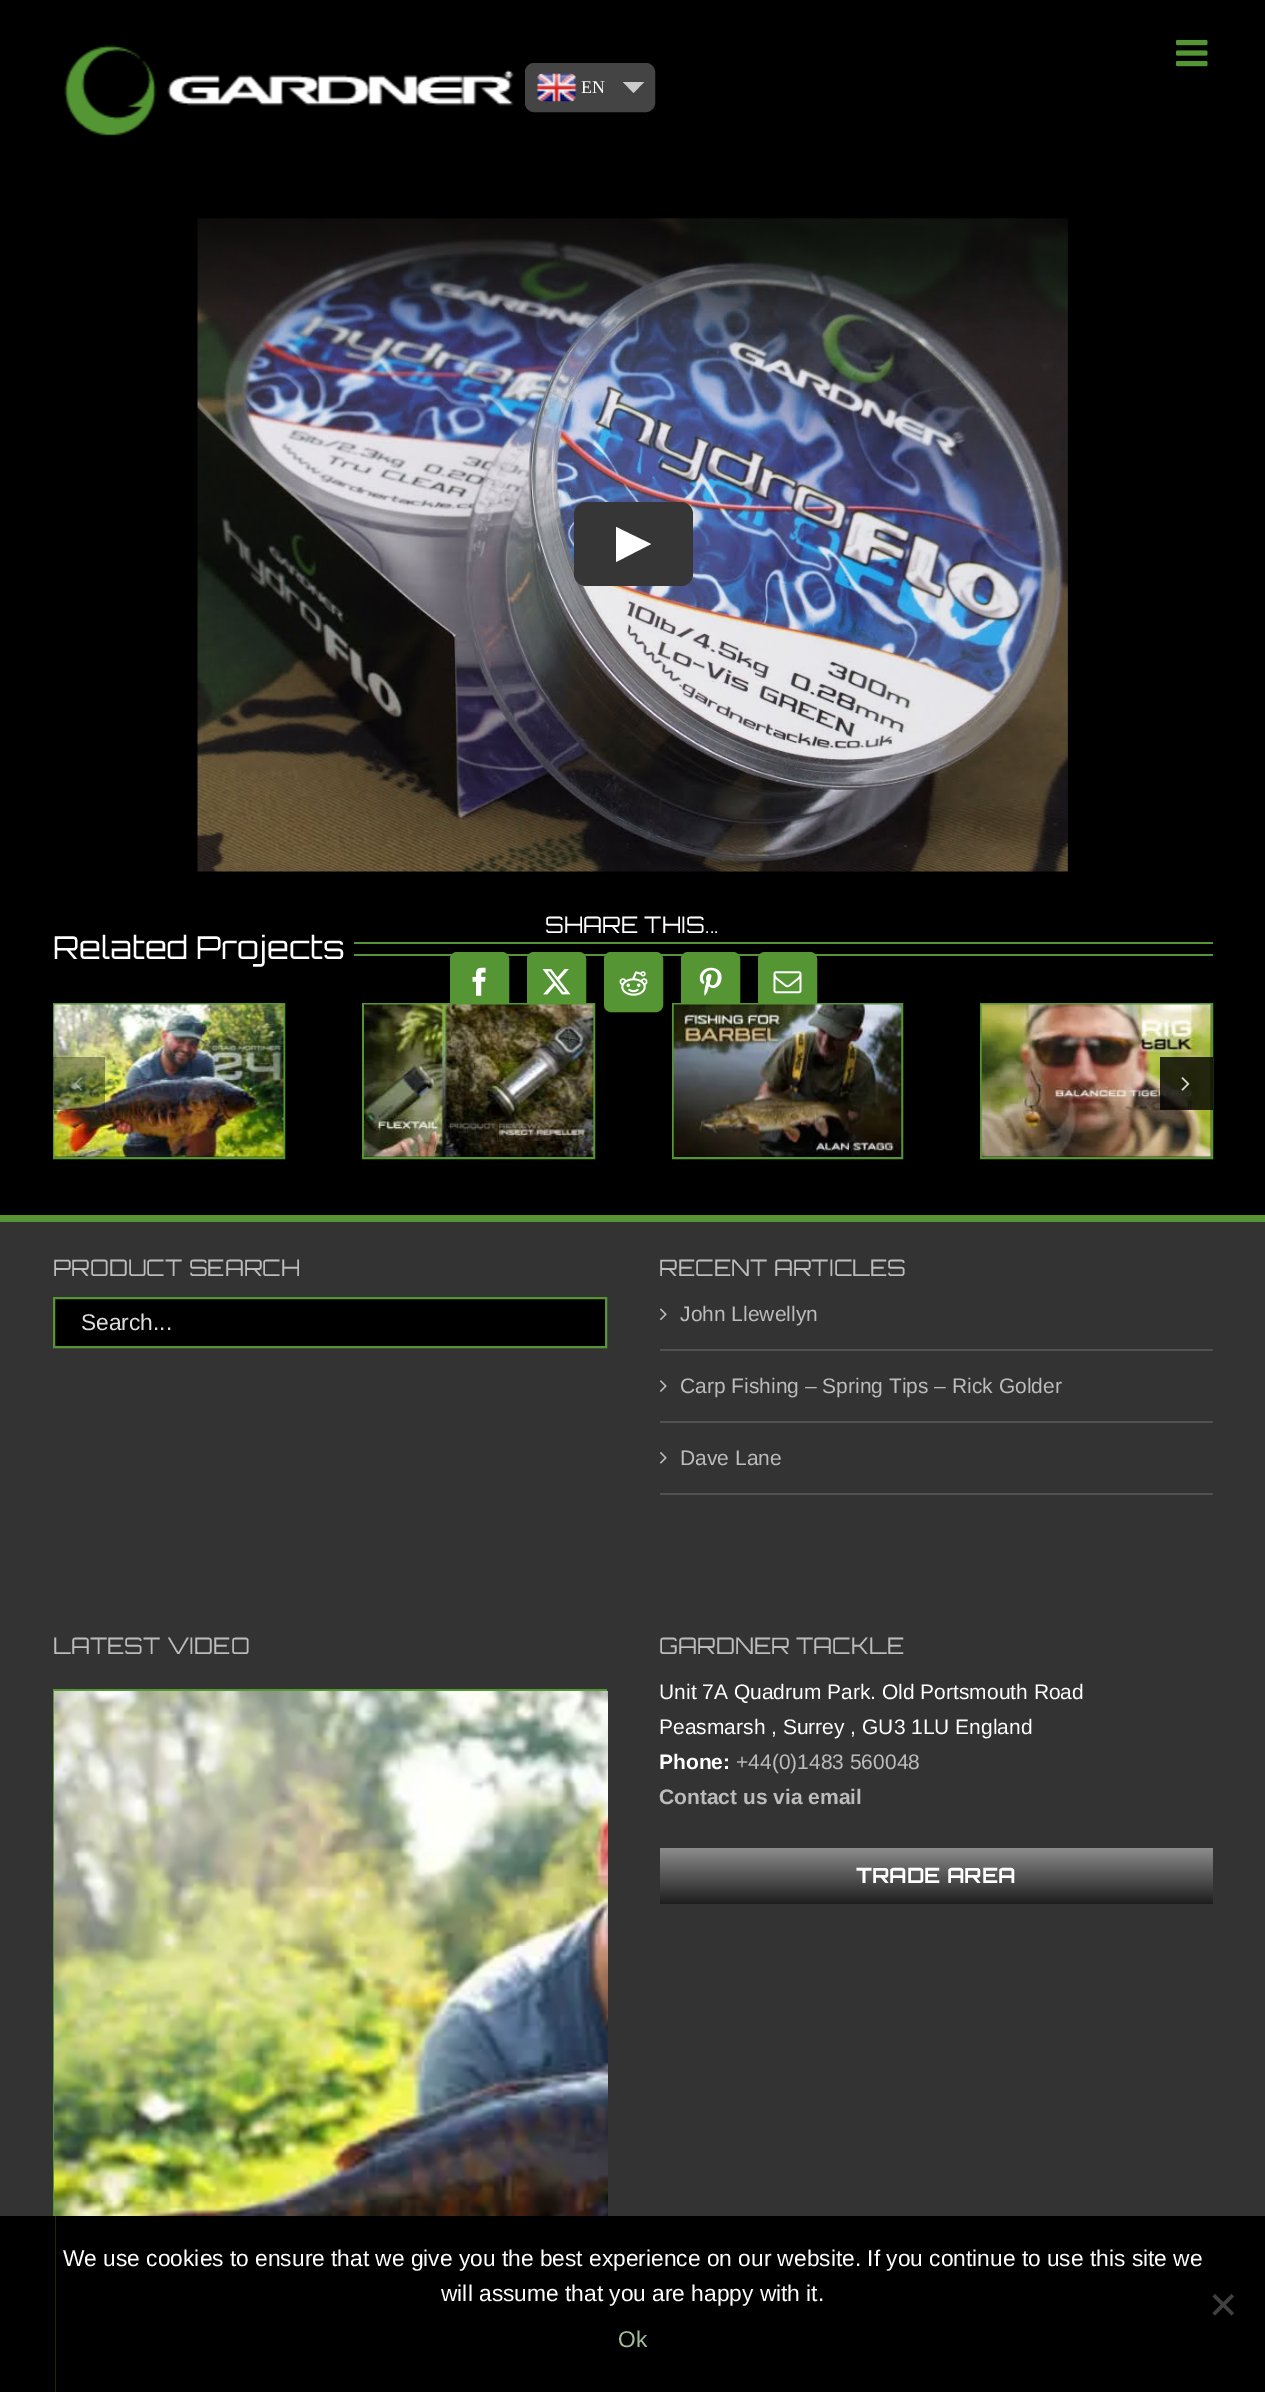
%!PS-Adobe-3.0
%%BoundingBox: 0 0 1265 2392
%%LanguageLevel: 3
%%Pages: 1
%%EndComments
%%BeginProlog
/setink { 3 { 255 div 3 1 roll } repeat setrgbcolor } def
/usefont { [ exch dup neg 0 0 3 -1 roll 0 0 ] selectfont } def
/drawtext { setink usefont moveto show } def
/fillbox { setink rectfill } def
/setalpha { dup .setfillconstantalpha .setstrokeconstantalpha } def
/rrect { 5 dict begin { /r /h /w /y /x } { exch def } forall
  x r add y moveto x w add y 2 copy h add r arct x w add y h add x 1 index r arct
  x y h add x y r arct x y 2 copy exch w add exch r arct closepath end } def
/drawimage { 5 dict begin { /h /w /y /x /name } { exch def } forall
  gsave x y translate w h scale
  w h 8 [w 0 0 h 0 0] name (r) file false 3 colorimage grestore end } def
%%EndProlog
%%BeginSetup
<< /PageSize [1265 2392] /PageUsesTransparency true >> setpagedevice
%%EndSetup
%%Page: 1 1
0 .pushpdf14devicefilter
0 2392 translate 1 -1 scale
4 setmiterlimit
0 0 1265 2392 0 0 0 fillbox
(assets/img1.rgb) 64 45 450 91 drawimage
68 68 68 setink
526 64 128 47 8 rrect gsave fill grestore
2 setlinewidth
stroke
(assets/img2.rgb) 536 73 41 29 drawimage
(EN) 581 93 /LiberationSerif-Regular 18 255 255 255 drawtext
204 204 204 setink
623 82 moveto 644 82 lineto 633.5 93 lineto closepath fill
(assets/img3.rgb) 1176 39 32 28 drawimage
(assets/img4.rgb) 197 218 871 654 drawimage
(assets/img5.rgb) 197 219 871 142 drawimage
54 54 54 setink
574 502 119 84 12 rrect fill
255 255 255 setink
616 562 moveto 616 527 lineto 651 544 lineto closepath fill
(SHARE THIS...) 545 933 /Orbitron-Regular 22.75 255 255 255 drawtext
85 149 52 setink
451 953 57 58 6 rrect gsave fill grestore
stroke
(assets/img6.rgb) 472 967 14 29 drawimage
528 953 57 58 6 rrect gsave fill grestore
stroke
(assets/img7.rgb) 542 969 29 26 drawimage
605 953 57 58 6 rrect gsave fill grestore
stroke
(assets/img8.rgb) 619 971 29 25 drawimage
682 953 57 58 6 rrect gsave fill grestore
stroke
(assets/img9.rgb) 699 967 23 29 drawimage
759 953 57 58 6 rrect gsave fill grestore
stroke
(assets/img10.rgb) 773 971 29 23 drawimage
(Related Projects) 53 959 /Orbitron-Regular 31.5 255 255 255 drawtext
354 942 859 2 85 149 52 fillbox
354 954 859 2 85 149 52 fillbox
54 1004 230 154 rectstroke
(assets/img11.rgb) 54 1004 230 153 drawimage
363 1004 231 154 rectstroke
(assets/img12.rgb) 364 1004 230 153 drawimage
673 1004 229 154 rectstroke
(assets/img13.rgb) 673 1004 229 153 drawimage
981 1004 231 154 rectstroke
(assets/img14.rgb) 981 1004 230 153 drawimage
0.35 setalpha
53 1057 52 53 0 0 0 fillbox
1 setalpha
(assets/img15.rgb) 74 1077 8 14 drawimage
0.8 setalpha
1160 1057 53 53 0 0 0 fillbox
1 setalpha
(assets/img16.rgb) 1181 1077 9 14 drawimage
0 1222 1265 994 51 51 51 fillbox
0 1215 1265 7 85 149 52 fillbox
(PRODUCT SEARCH) 53 1276 /Orbitron-Regular 22.75 188 188 188 drawtext
0 0 0 setink
54 1298 moveto 606 1298 lineto 606 1347 lineto 54 1347 lineto closepath gsave fill grestore
85 149 52 setink
stroke
(Search...) 81 1330 /LiberationSans-Regular 22.75 221 221 221 drawtext
(RECENT ARTICLES) 659 1276 /Orbitron-Regular 22.75 188 188 188 drawtext
660 1349 553 2 80 81 82 fillbox
(assets/img17.rgb) 660 1308 7 13 drawimage
(John Llewellyn) 680 1321 /LiberationSans-Regular 21 188 188 188 drawtext
660 1421 553 2 80 81 82 fillbox
(assets/img18.rgb) 660 1380 7 12 drawimage
(Carp Fishing – Spring Tips – Rick Golder) 680 1393 /LiberationSans-Regular 21 188 188 188 drawtext
660 1493 553 2 80 81 82 fillbox
(assets/img19.rgb) 660 1452 7 12 drawimage
(Dave Lane) 680 1465 /LiberationSans-Regular 21 188 188 188 drawtext
(LATEST VIDEO) 53 1654 /Orbitron-Regular 22.75 188 188 188 drawtext
(Unit 7A Quadrum Park. Old Portsmouth Road) 659 1699 /LiberationSans-Regular 21 255 255 255 drawtext
gsave 660 1848 moveto 1213 1848 lineto 1213 1904 lineto 660 1904 lineto closepath clip newpath
<< /ShadingType 2 /ColorSpace /DeviceRGB /Coords [936 1848 936 1904] /Extend [true true] /Function << /FunctionType 2 /Domain [0 1] /C0 [0.549 0.549 0.549] /C1 [0.118 0.118 0.118] /N 1 >> >> shfill grestore
gsave
53 1675 554 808 rectclip
85 149 52 setink
54 1690 1158 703 rectstroke
grestore
(assets/img20.rgb) 54 1691 554 525 drawimage
(GARDNER TACKLE) 659 1654 /Orbitron-Regular 22.75 188 188 188 drawtext
(Peasmarsh , Surrey , GU3 1LU England) 659 1734 /LiberationSans-Regular 21 255 255 255 drawtext
(Phone:) 659 1769 /LiberationSans-Bold 21 255 255 255 drawtext
(+44\(0\)1483 560048) 736 1769 /LiberationSans-Regular 21 188 188 188 drawtext
(Contact us via email) 659 1804 /LiberationSans-Bold 21 188 188 188 drawtext
(TRADE AREA) 856 1883 /Orbitron-Bold 21 255 255 255 drawtext
53 2216 2 176 0 0 0 fillbox
(We use cookies to ensure that we give you the best experience on our website. If you continue to use this site we) 63 2266 /LiberationSans-Regular 22.75 255 255 255 drawtext
(will assume that you are happy with it.) 441 2301 /LiberationSans-Regular 22.75 255 255 255 drawtext
64 64 64 setink
1231.5 2294 moveto 1234 2296.5 lineto 1215 2315.5 lineto 1212.5 2313 lineto closepath fill
1212.5 2296.5 moveto 1215 2294 lineto 1234 2313 lineto 1231.5 2315.5 lineto closepath fill
(Ok) 618 2347 /LiberationSans-Regular 22.75 164 188 150 drawtext
.poppdf14devicefilter showpage
%%EOF
